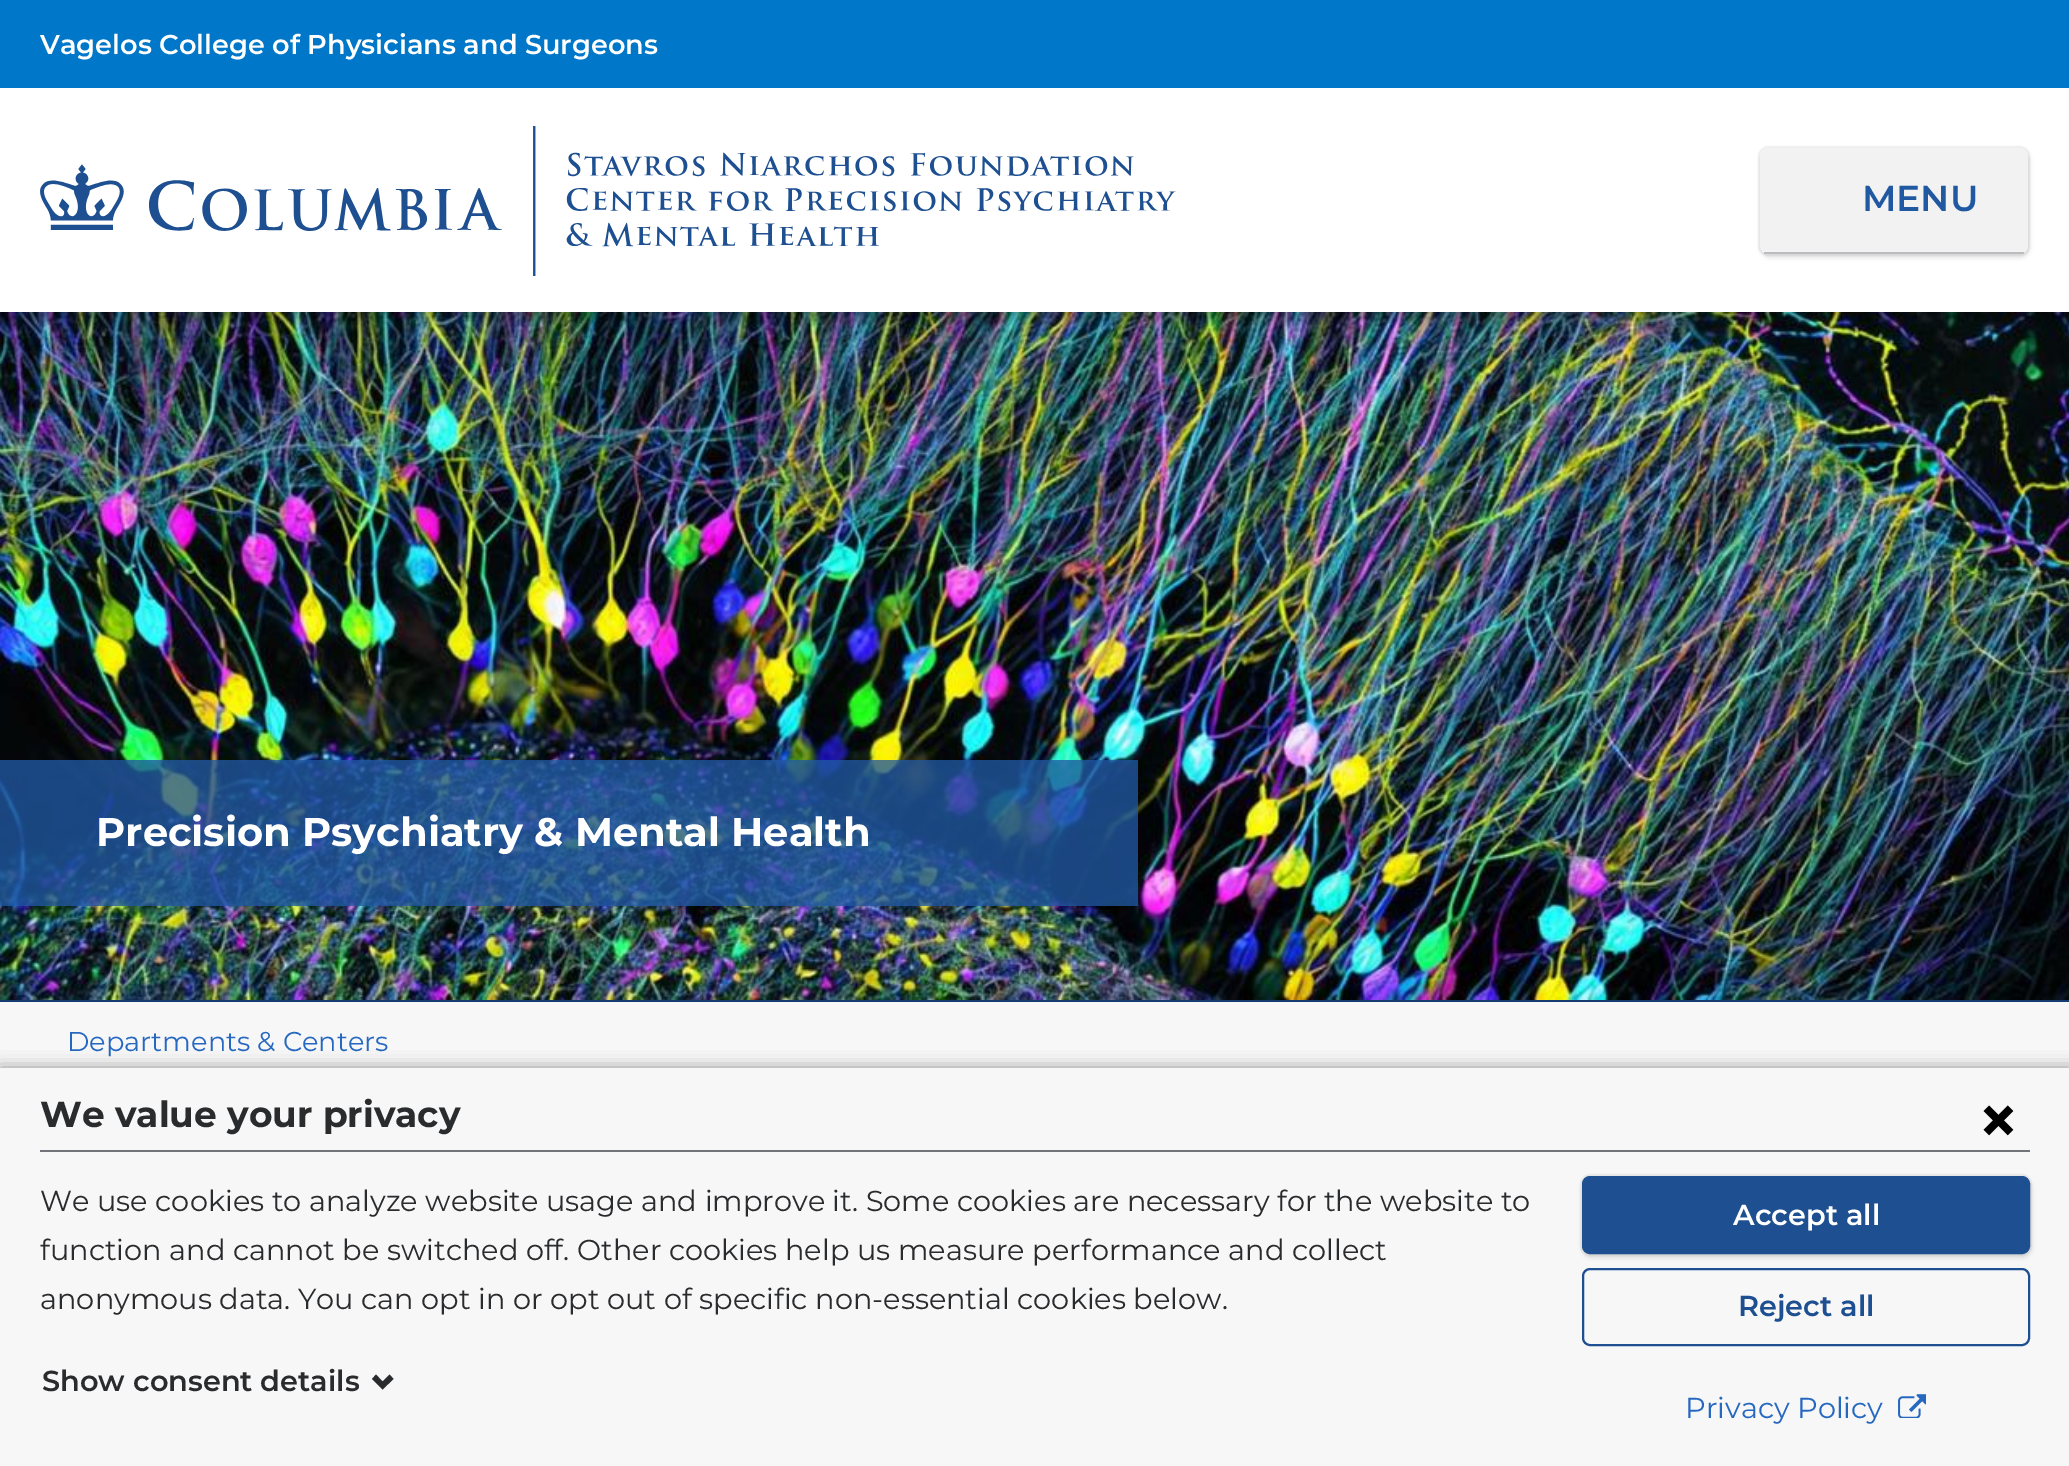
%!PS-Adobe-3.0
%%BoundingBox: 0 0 2069 1466
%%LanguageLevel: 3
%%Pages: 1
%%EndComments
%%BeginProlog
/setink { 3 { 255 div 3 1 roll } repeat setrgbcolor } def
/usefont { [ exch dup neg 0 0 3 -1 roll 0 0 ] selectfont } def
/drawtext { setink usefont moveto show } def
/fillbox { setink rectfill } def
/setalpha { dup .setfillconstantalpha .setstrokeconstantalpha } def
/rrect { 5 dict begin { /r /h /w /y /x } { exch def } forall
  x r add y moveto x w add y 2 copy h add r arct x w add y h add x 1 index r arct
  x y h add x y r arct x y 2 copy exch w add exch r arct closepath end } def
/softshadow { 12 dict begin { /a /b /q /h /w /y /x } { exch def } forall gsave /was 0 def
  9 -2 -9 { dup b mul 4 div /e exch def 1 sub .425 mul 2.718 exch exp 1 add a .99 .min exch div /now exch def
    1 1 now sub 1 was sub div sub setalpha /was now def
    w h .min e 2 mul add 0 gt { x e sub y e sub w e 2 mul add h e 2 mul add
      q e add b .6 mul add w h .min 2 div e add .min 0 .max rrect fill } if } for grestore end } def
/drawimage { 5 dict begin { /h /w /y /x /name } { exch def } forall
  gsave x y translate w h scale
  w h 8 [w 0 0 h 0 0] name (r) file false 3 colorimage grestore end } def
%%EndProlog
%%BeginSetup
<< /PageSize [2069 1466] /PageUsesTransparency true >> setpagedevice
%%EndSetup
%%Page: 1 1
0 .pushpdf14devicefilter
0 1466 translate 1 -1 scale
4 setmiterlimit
0 0 2069 1466 255 255 255 fillbox
(assets/img2.rgb) 0 312 2069 688 drawimage
gsave
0 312 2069 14 rectclip
0 0 0 setink
0 8 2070 312 0 4 0.24 softshadow
grestore
0 0 2069 88 0 119 200 fillbox
(Vagelos College of Physicians and Surgeons) 40 54 /Montserrat-SemiBold 27.2 255 255 255 drawtext
(assets/img1.rgb) 40 126 1136 150 drawimage
0 0 0 setink
1758 146 272 110 10 0.5 0.06 softshadow
1760 150 270 108 10 2 0.1 softshadow
242 242 243 setink
1760 148 268 106 8 rrect fill
1764 252 260 2 186 188 191 fillbox
(MENU) 1862 211 /Montserrat-SemiBold 36 32 88 162 drawtext
0 1000 2069 2 22 60 111 fillbox
0.78 setalpha
0 760 1138 146 32 88 162 fillbox
1 setalpha
(Precision Psychiatry & Mental Health) 96 846 /Montserrat-Bold 40 255 255 255 drawtext
0 1002 2069 66 247 247 248 fillbox
(Departments & Centers) 67 1051 /Montserrat-Regular 27.2 38 104 192 drawtext
0 0 0 setink
0 1068 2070 398 0 8 0.4 softshadow
0 1068 2069 398 247 247 248 fillbox
40 1150 1990 2 113 117 122 fillbox
(We value your privacy) 40 1127 /Montserrat-Bold 36 42 43 45 drawtext
(assets/img3.rgb) 1983 1105 31 31 drawimage
(We use cookies to analyze website usage and improve it. Some cookies are necessary for the website to) 40 1211 /Montserrat-Regular 28.8 42 43 45 drawtext
(function and cannot be switched off. Other cookies help us measure performance and collect) 40 1260 /Montserrat-Regular 28.8 42 43 45 drawtext
(anonymous data. You can opt in or opt out of specific non-essential cookies below.) 40 1309 /Montserrat-Regular 28.8 42 43 45 drawtext
(Show consent details) 42 1391 /Montserrat-SemiBold 28.8 42 43 45 drawtext
372 1379 moveto 376 1374.5 lineto 382.5 1381.5 lineto 389.5 1374.5 lineto 393.5 1379 lineto 382.5 1389.5 lineto closepath fill
0 0 0 setink
1580 1174 452 82 10 0.5 0.06 softshadow
1582 1178 450 80 10 2 0.1 softshadow
29 79 145 setink
1583 1177 446 76 7 rrect gsave fill grestore
2 setlinewidth
stroke
(Accept all) 1733 1225 /Montserrat-SemiBold 28.8 255 255 255 drawtext
29 79 145 setink
1583 1269 446 76 7 rrect stroke
(Reject all) 1738 1316 /Montserrat-SemiBold 28.8 29 79 145 drawtext
(Privacy Policy) 1685 1418 /Montserrat-Regular 28.8 38 104 192 drawtext
(assets/img4.rgb) 1898 1394 28 24 drawimage
.poppdf14devicefilter showpage
%%EOF
